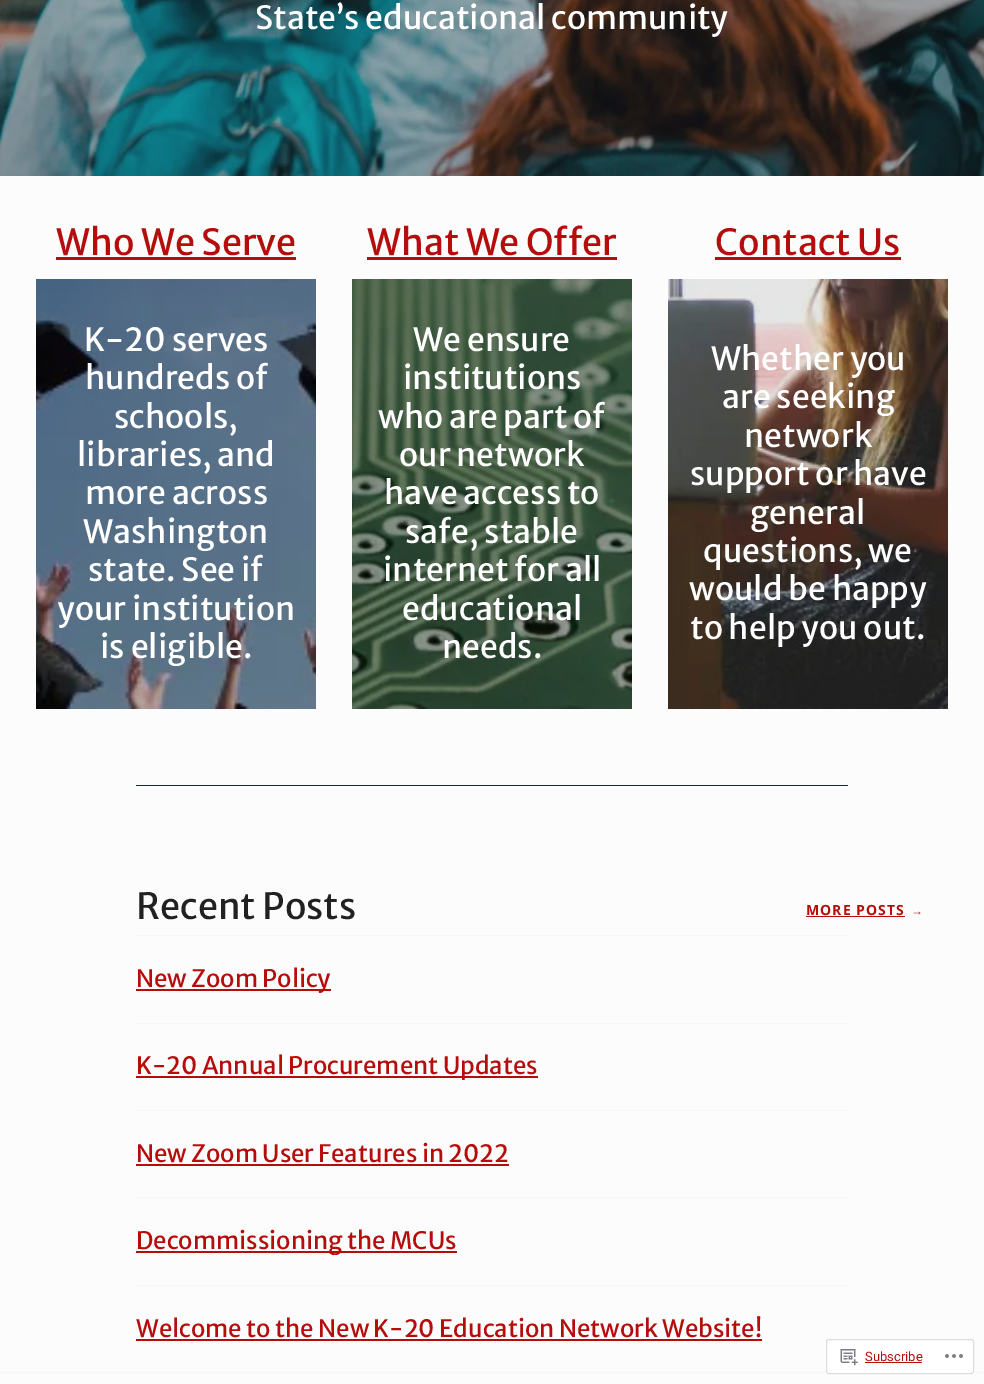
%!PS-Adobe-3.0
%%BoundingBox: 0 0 984 1384
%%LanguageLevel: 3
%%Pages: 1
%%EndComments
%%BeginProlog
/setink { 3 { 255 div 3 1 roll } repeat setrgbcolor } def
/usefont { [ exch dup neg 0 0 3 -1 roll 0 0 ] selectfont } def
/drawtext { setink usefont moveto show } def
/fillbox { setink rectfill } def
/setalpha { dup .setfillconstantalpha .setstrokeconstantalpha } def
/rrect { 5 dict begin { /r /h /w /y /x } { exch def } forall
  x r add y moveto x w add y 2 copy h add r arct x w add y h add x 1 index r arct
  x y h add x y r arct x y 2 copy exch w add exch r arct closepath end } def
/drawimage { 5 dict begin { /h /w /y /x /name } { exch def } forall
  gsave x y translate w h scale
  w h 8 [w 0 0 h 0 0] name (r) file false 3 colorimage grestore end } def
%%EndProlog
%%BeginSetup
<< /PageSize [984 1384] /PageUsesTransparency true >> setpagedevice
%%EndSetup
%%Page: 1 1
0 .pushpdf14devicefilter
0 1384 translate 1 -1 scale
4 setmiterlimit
0 0 984 1384 252 252 252 fillbox
(assets/img1.rgb) 0 0 984 176 drawimage
(State’s educational community) 255 29 /MerriweatherSans-Regular 32 255 255 255 drawtext
(Who We Serve) 56 255 /MerriweatherSans-Regular 36 181 12 12 drawtext
56 257 240 3 181 12 12 fillbox
(assets/img2.rgb) 36 279 280 430 drawimage
(K-20 serves) 84 351 /MerriweatherSans-Regular 32 255 255 255 drawtext
(hundreds of) 85 389 /MerriweatherSans-Regular 32 255 255 255 drawtext
(schools,) 114 428 /MerriweatherSans-Regular 32 255 255 255 drawtext
(libraries, and) 77 466 /MerriweatherSans-Regular 32 255 255 255 drawtext
(more across) 85 504 /MerriweatherSans-Regular 32 255 255 255 drawtext
(Washington) 83 543 /MerriweatherSans-Regular 32 255 255 255 drawtext
(state. See if) 88 581 /MerriweatherSans-Regular 32 255 255 255 drawtext
(your institution) 57 620 /MerriweatherSans-Regular 32 255 255 255 drawtext
(is eligible.) 100 658 /MerriweatherSans-Regular 32 255 255 255 drawtext
(What We Offer) 367 255 /MerriweatherSans-Regular 36 181 12 12 drawtext
367 257 250 3 181 12 12 fillbox
(assets/img3.rgb) 352 279 280 430 drawimage
(We ensure) 413 351 /MerriweatherSans-Regular 32 255 255 255 drawtext
(institutions) 403 389 /MerriweatherSans-Regular 32 255 255 255 drawtext
(who are part of) 378 428 /MerriweatherSans-Regular 32 255 255 255 drawtext
(our network) 399 466 /MerriweatherSans-Regular 32 255 255 255 drawtext
(have access to) 384 504 /MerriweatherSans-Regular 32 255 255 255 drawtext
(safe, stable) 405 543 /MerriweatherSans-Regular 32 255 255 255 drawtext
(internet for all) 383 581 /MerriweatherSans-Regular 32 255 255 255 drawtext
(educational) 402 620 /MerriweatherSans-Regular 32 255 255 255 drawtext
(needs.) 442 658 /MerriweatherSans-Regular 32 255 255 255 drawtext
(Contact Us) 715 255 /MerriweatherSans-Regular 36 181 12 12 drawtext
715 257 186 3 181 12 12 fillbox
(assets/img4.rgb) 668 279 280 430 drawimage
(Whether you) 711 370 /MerriweatherSans-Regular 32 255 255 255 drawtext
(are seeking) 722 408 /MerriweatherSans-Regular 32 255 255 255 drawtext
(network) 744 447 /MerriweatherSans-Regular 32 255 255 255 drawtext
(support or have) 690 485 /MerriweatherSans-Regular 32 255 255 255 drawtext
(general) 750 524 /MerriweatherSans-Regular 32 255 255 255 drawtext
(questions, we) 703 562 /MerriweatherSans-Regular 32 255 255 255 drawtext
(would be happy) 689 600 /MerriweatherSans-Regular 32 255 255 255 drawtext
(to help you out.) 690 639 /MerriweatherSans-Regular 32 255 255 255 drawtext
136 785 712 1 25 41 48 fillbox
136 935 712 1 248 247 246 fillbox
(Recent Posts) 136 919 /MerriweatherSans-Regular 36 33 33 33 drawtext
/OpenSans-Bold 14 usefont
181 12 12 setink
806 915 moveto 1 0 (MORE POSTS) ashow
806 916 99 1 181 12 12 fillbox
/LiberationSans-Bold 12 usefont
911 915 moveto 1 0 (→) ashow
136 1023 712 1 248 247 246 fillbox
136 989 195 2 181 12 12 fillbox
(New Zoom Policy) 136 987 /MerriweatherSans-Regular 24 181 12 12 drawtext
136 1110 712 1 248 247 246 fillbox
136 1076 402 2 181 12 12 fillbox
(K-20 Annual Procurement Updates) 136 1074 /MerriweatherSans-Regular 24 181 12 12 drawtext
136 1197 712 1 248 247 246 fillbox
(New Zoom User Features in 2022) 136 1162 /MerriweatherSans-Regular 24 181 12 12 drawtext
136 1164 373 2 181 12 12 fillbox
136 1285 712 1 248 247 246 fillbox
136 1251 321 2 181 12 12 fillbox
(Decommissioning the MCUs) 136 1249 /MerriweatherSans-Regular 24 181 12 12 drawtext
(Welcome to the New K-20 Education Network Website!) 136 1337 /MerriweatherSans-Regular 24 181 12 12 drawtext
136 1339 626 2 181 12 12 fillbox
0 1372 984 1 248 247 246 fillbox
0.98 setalpha
255 255 255 setink
826 1339 148 35 3 rrect fill
220 220 222 setink
826.5 1339.5 147 34 2.5 rrect stroke
1 setalpha
(assets/img5.rgb) 840 1349 18 17 drawimage
(Subscribe) 865 1361 /Roboto-Regular 13 181 12 12 drawtext
865 1362 57 1 182 17 17 fillbox
(assets/img6.rgb) 945 1354 18 4 drawimage
.poppdf14devicefilter showpage
%%EOF
